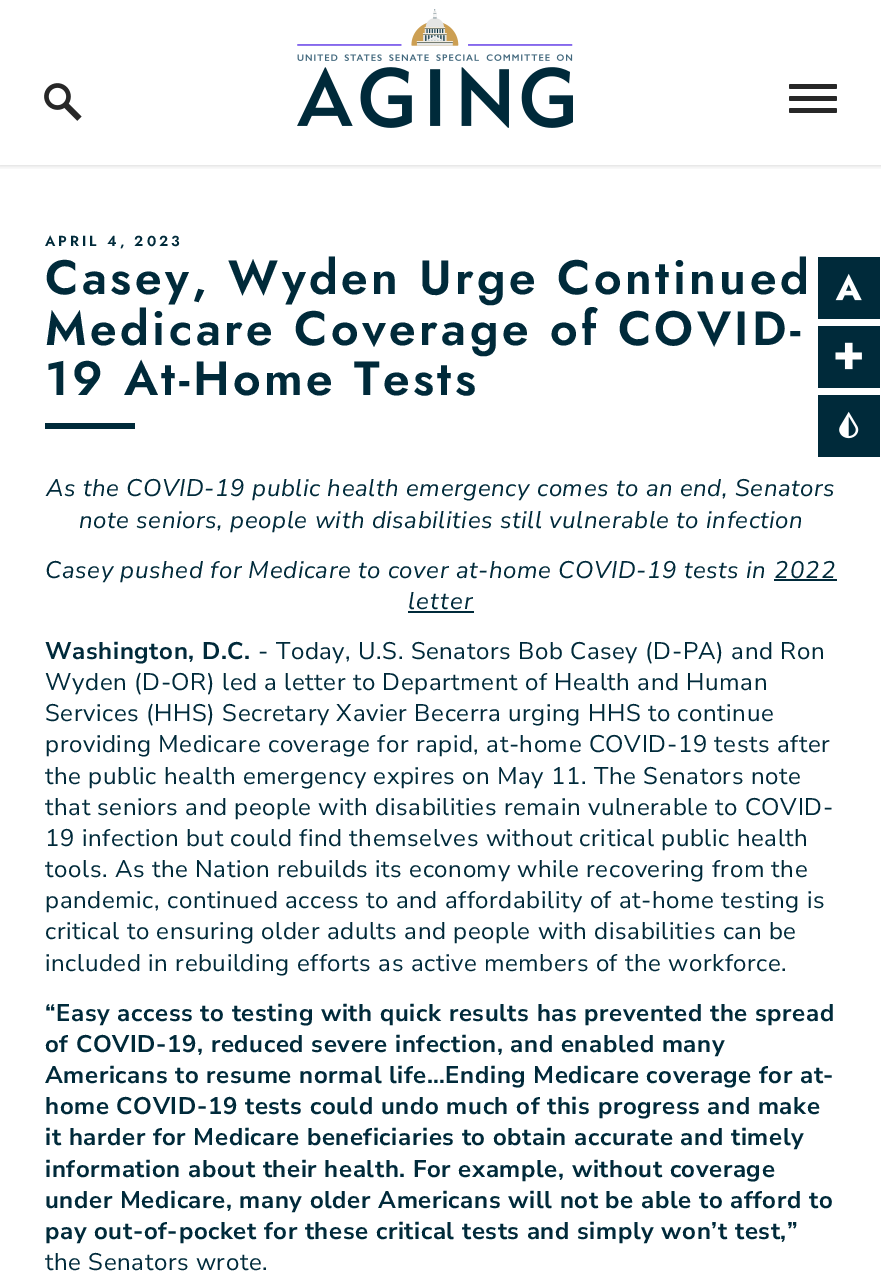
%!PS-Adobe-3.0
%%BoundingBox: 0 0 881 1274
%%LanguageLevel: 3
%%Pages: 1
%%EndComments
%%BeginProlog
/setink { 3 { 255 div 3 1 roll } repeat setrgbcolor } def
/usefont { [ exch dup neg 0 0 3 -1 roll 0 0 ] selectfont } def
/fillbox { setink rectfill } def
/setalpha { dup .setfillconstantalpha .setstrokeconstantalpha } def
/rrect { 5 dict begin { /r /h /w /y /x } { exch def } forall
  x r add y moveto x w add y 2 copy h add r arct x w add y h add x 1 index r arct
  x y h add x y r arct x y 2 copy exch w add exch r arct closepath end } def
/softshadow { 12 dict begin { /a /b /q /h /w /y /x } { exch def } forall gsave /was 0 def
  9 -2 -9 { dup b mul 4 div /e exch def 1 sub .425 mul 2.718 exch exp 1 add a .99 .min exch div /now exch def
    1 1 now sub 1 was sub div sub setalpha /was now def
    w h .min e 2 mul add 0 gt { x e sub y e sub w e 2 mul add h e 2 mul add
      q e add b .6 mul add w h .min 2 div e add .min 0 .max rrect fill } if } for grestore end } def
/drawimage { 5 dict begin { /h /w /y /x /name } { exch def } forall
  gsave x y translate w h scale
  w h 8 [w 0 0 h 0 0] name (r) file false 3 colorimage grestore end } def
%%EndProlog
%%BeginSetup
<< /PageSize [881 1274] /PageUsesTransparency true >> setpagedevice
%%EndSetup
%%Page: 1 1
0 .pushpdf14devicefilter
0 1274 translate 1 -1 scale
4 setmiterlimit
0 0 881 1274 255 255 255 fillbox
gsave
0 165 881 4 rectclip
0 0 0 setink
0 0 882 165 0 3 0.2 softshadow
grestore
(assets/img1.rgb) 44 83 38 38 drawimage
(assets/img2.rgb) 297 9 276 119 drawimage
39 39 39 setink
789 84 48 5 1.5 rrect fill
789 96 48 5 1.5 rrect fill
789 108 48 5 1.5 rrect fill
/Jost-SemiBold 14.5 usefont
0 42 58 setink
45 246 moveto 3 0 (APRIL 4, 2023) ashow
45 423 90 6 0 42 58 fillbox
/Jost-SemiBold 48 usefont
45 294 moveto 3.4 0 (Casey, Wyden Urge Continued) ashow
45 345 moveto 3.4 0 (Medicare Coverage of COVID-) ashow
45 395 moveto 3.4 0 (19 At-Home Tests) ashow
/NunitoSans-Italic 24 usefont
46 496 moveto 0.6 0 (As the COVID-19 public health emergency comes to an end, Senators) ashow
79 528 moveto 0.6 0 (note seniors, people with disabilities still vulnerable to infection) ashow
45 578 moveto 0.6 0 (Casey pushed for Medicare to cover at-home COVID-19 tests in) ashow
774 578 moveto 1.25 0 (2022) ashow
774 579 63 2 0 42 58 fillbox
408 609 moveto 1.25 0 (letter) ashow
408 611 66 2 0 42 58 fillbox
/NunitoSans-Bold 24 usefont
45 659 moveto 0.6 0 (Washington, D.C.) ashow
/NunitoSans-Regular 24 usefont
258 659 moveto 0.6 0 (- Today, U.S. Senators Bob Casey \(D-PA\) and Ron) ashow
45 690 moveto 0.6 0 (Wyden \(D-OR\) led a letter to Department of Health and Human) ashow
45 721 moveto 0.6 0 (Services \(HHS\) Secretary Xavier Becerra urging HHS to continue) ashow
45 752 moveto 0.6 0 (providing Medicare coverage for rapid, at-home COVID-19 tests after) ashow
45 784 moveto 0.6 0 (the public health emergency expires on May 11. The Senators note) ashow
45 815 moveto 0.6 0 (that seniors and people with disabilities remain vulnerable to COVID-) ashow
45 846 moveto 0.6 0 (19 infection but could find themselves without critical public health) ashow
45 877 moveto 0.6 0 (tools. As the Nation rebuilds its economy while recovering from the) ashow
45 908 moveto 0.6 0 (pandemic, continued access to and affordability of at-home testing is) ashow
45 939 moveto 0.6 0 (critical to ensuring older adults and people with disabilities can be) ashow
45 971 moveto 0.6 0 (included in rebuilding efforts as active members of the workforce.) ashow
/NunitoSans-Bold 24 usefont
45 1021 moveto 0.6 0 (“Easy access to testing with quick results has prevented the spread) ashow
45 1052 moveto 0.6 0 (of COVID-19, reduced severe infection, and enabled many) ashow
45 1083 moveto 0.6 0 (Americans to resume normal life…Ending Medicare coverage for at-) ashow
45 1114 moveto 0.6 0 (home COVID-19 tests could undo much of this progress and make) ashow
45 1145 moveto 0.6 0 (it harder for Medicare beneficiaries to obtain accurate and timely) ashow
45 1177 moveto 0.6 0 (information about their health. For example, without coverage) ashow
45 1208 moveto 0.6 0 (under Medicare, many older Americans will not be able to afford to) ashow
45 1239 moveto 0.6 0 (pay out-of-pocket for these critical tests and simply won’t test,”) ashow
/NunitoSans-Regular 24 usefont
45 1270 moveto 0.6 0 (the Senators wrote.) ashow
818 257 62 62 0 42 58 fillbox
(assets/img3.rgb) 835 273 27 28 drawimage
818 326 62 62 0 42 58 fillbox
(assets/img4.rgb) 835 342 27 28 drawimage
818 395 62 62 0 42 58 fillbox
(assets/img5.rgb) 839 411 20 28 drawimage
.poppdf14devicefilter showpage
%%EOF
